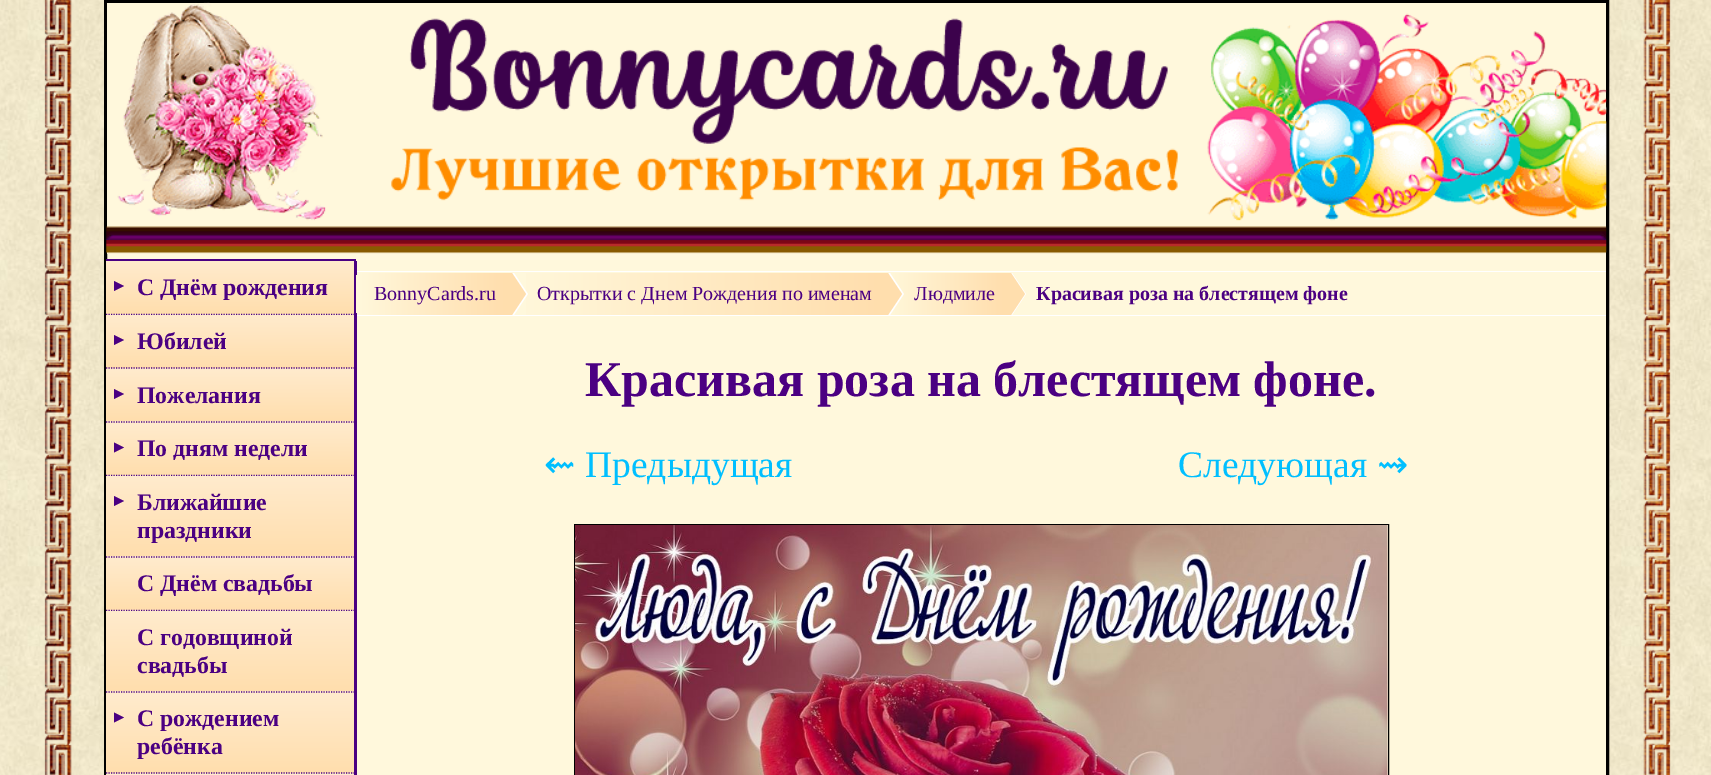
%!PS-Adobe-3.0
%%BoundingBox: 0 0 1711 775
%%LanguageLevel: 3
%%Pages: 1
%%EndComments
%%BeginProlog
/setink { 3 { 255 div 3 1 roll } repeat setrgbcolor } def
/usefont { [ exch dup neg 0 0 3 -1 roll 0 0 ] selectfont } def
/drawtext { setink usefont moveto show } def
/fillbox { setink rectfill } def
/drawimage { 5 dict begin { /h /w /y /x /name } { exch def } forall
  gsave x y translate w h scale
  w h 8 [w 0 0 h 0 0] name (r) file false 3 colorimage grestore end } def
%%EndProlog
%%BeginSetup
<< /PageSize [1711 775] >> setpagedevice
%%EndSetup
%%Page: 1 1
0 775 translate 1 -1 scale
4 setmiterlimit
0 0 1711 775 255 255 255 fillbox
(assets/img1.rgb) 0 0 1711 775 drawimage
255 248 220 setink
105.5 1.5 moveto 1607.5 1.5 lineto 1607.5 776.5 lineto 105.5 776.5 lineto closepath gsave fill grestore
0 0 0 setink
3 setlinewidth
stroke
(assets/img2.rgb) 106 2 1501 252 drawimage
106 259 250 2 75 0 130 fillbox
gsave 106 261 moveto 354 261 lineto 354 314 lineto 106 314 lineto closepath clip newpath
<< /ShadingType 2 /ColorSpace /DeviceRGB /Coords [230 261 230 314] /Extend [true true] /Function << /FunctionType 2 /Domain [0 1] /C0 [1 0.922 0.804] /C1 [1 0.871 0.678] /N 1 >> >> shfill grestore
114 291 moveto 114 281 lineto 124 286 lineto closepath fill
gsave 106 314 moveto 356 314 lineto 356 315 lineto 106 315 lineto closepath clip newpath
<< /ShadingType 2 /ColorSpace /DeviceRGB /Coords [230 314 230 366] /Extend [true true] /Function << /FunctionType 2 /Domain [0 1] /C0 [1 0.922 0.804] /C1 [1 0.871 0.678] /N 1 >> >> shfill grestore
356 271 1250 1 255 255 255 fillbox
354 261 3 54 75 0 130 fillbox
1.2 setlinewidth
[1.25 1.25] 0 setdash
106 314.5 moveto 356 314.5 lineto stroke
(С Днём рождения) 137 295 /LiberationSerif-Bold 23.75 75 0 130 drawtext
gsave 106 315 moveto 354 315 lineto 354 368 lineto 106 368 lineto closepath clip newpath
<< /ShadingType 2 /ColorSpace /DeviceRGB /Coords [230 315 230 368] /Extend [true true] /Function << /FunctionType 2 /Domain [0 1] /C0 [1 0.922 0.804] /C1 [1 0.871 0.678] /N 1 >> >> shfill grestore
114 345 moveto 114 335 lineto 124 340 lineto closepath fill
gsave 106 368 moveto 356 368 lineto 356 369 lineto 106 369 lineto closepath clip newpath
<< /ShadingType 2 /ColorSpace /DeviceRGB /Coords [230 368 230 420] /Extend [true true] /Function << /FunctionType 2 /Domain [0 1] /C0 [1 0.922 0.804] /C1 [1 0.871 0.678] /N 1 >> >> shfill grestore
356 315 1250 1 255 255 255 fillbox
354 315 3 54 75 0 130 fillbox
106 368 moveto 356 368 lineto stroke
(Юбилей) 137 349 /LiberationSerif-Bold 23.75 75 0 130 drawtext
gsave 106 369 moveto 354 369 lineto 354 421 lineto 106 421 lineto closepath clip newpath
<< /ShadingType 2 /ColorSpace /DeviceRGB /Coords [230 369 230 421] /Extend [true true] /Function << /FunctionType 2 /Domain [0 1] /C0 [1 0.922 0.804] /C1 [1 0.871 0.678] /N 1 >> >> shfill grestore
114 399 moveto 114 389 lineto 124 394 lineto closepath fill
gsave 106 421 moveto 356 421 lineto 356 423 lineto 106 423 lineto closepath clip newpath
<< /ShadingType 2 /ColorSpace /DeviceRGB /Coords [230 421 230 474] /Extend [true true] /Function << /FunctionType 2 /Domain [0 1] /C0 [1 0.922 0.804] /C1 [1 0.871 0.678] /N 1 >> >> shfill grestore
354 369 3 54 75 0 130 fillbox
106 422 moveto 356 422 lineto stroke
(Пожелания) 137 403 /LiberationSerif-Bold 23.75 75 0 130 drawtext
gsave 106 423 moveto 354 423 lineto 354 475 lineto 106 475 lineto closepath clip newpath
<< /ShadingType 2 /ColorSpace /DeviceRGB /Coords [230 423 230 475] /Extend [true true] /Function << /FunctionType 2 /Domain [0 1] /C0 [1 0.922 0.804] /C1 [1 0.871 0.678] /N 1 >> >> shfill grestore
114 452.5 moveto 114 442.5 lineto 124 447.5 lineto closepath fill
gsave 106 475 moveto 356 475 lineto 356 476 lineto 106 476 lineto closepath clip newpath
<< /ShadingType 2 /ColorSpace /DeviceRGB /Coords [230 475 230 528] /Extend [true true] /Function << /FunctionType 2 /Domain [0 1] /C0 [1 0.922 0.804] /C1 [1 0.871 0.678] /N 1 >> >> shfill grestore
354 423 3 53 75 0 130 fillbox
106 475.5 moveto 356 475.5 lineto stroke
(По дням недели) 137 456 /LiberationSerif-Bold 23.75 75 0 130 drawtext
gsave 106 476 moveto 354 476 lineto 354 556 lineto 106 556 lineto closepath clip newpath
<< /ShadingType 2 /ColorSpace /DeviceRGB /Coords [230 476 230 556] /Extend [true true] /Function << /FunctionType 2 /Domain [0 1] /C0 [1 0.922 0.804] /C1 [1 0.871 0.678] /N 1 >> >> shfill grestore
114 506 moveto 114 496 lineto 124 501 lineto closepath fill
gsave 106 556 moveto 356 556 lineto 356 558 lineto 106 558 lineto closepath clip newpath
<< /ShadingType 2 /ColorSpace /DeviceRGB /Coords [230 556 230 636] /Extend [true true] /Function << /FunctionType 2 /Domain [0 1] /C0 [1 0.922 0.804] /C1 [1 0.871 0.678] /N 1 >> >> shfill grestore
354 476 3 82 75 0 130 fillbox
106 557 moveto 356 557 lineto stroke
(Ближайшие) 137 510 /LiberationSerif-Bold 23.75 75 0 130 drawtext
(праздники) 137 538 /LiberationSerif-Bold 23.75 75 0 130 drawtext
gsave 106 558 moveto 354 558 lineto 354 610 lineto 106 610 lineto closepath clip newpath
<< /ShadingType 2 /ColorSpace /DeviceRGB /Coords [230 558 230 610] /Extend [true true] /Function << /FunctionType 2 /Domain [0 1] /C0 [1 0.922 0.804] /C1 [1 0.871 0.678] /N 1 >> >> shfill grestore
gsave 106 610 moveto 356 610 lineto 356 611 lineto 106 611 lineto closepath clip newpath
<< /ShadingType 2 /ColorSpace /DeviceRGB /Coords [230 610 230 663] /Extend [true true] /Function << /FunctionType 2 /Domain [0 1] /C0 [1 0.922 0.804] /C1 [1 0.871 0.678] /N 1 >> >> shfill grestore
354 558 3 53 75 0 130 fillbox
106 610.5 moveto 356 610.5 lineto stroke
(С Днём свадьбы) 137 591 /LiberationSerif-Bold 23.75 75 0 130 drawtext
gsave 106 611 moveto 354 611 lineto 354 691 lineto 106 691 lineto closepath clip newpath
<< /ShadingType 2 /ColorSpace /DeviceRGB /Coords [230 611 230 691] /Extend [true true] /Function << /FunctionType 2 /Domain [0 1] /C0 [1 0.922 0.804] /C1 [1 0.871 0.678] /N 1 >> >> shfill grestore
gsave 106 691 moveto 356 691 lineto 356 693 lineto 106 693 lineto closepath clip newpath
<< /ShadingType 2 /ColorSpace /DeviceRGB /Coords [230 691 230 771] /Extend [true true] /Function << /FunctionType 2 /Domain [0 1] /C0 [1 0.922 0.804] /C1 [1 0.871 0.678] /N 1 >> >> shfill grestore
354 611 3 82 75 0 130 fillbox
106 692 moveto 356 692 lineto stroke
(С годовщиной) 137 645 /LiberationSerif-Bold 23.75 75 0 130 drawtext
(свадьбы) 137 673 /LiberationSerif-Bold 23.75 75 0 130 drawtext
gsave 106 693 moveto 354 693 lineto 354 773 lineto 106 773 lineto closepath clip newpath
<< /ShadingType 2 /ColorSpace /DeviceRGB /Coords [230 693 230 773] /Extend [true true] /Function << /FunctionType 2 /Domain [0 1] /C0 [1 0.922 0.804] /C1 [1 0.871 0.678] /N 1 >> >> shfill grestore
114 722.5 moveto 114 712.5 lineto 124 717.5 lineto closepath fill
gsave 106 773 moveto 356 773 lineto 356 774 lineto 106 774 lineto closepath clip newpath
<< /ShadingType 2 /ColorSpace /DeviceRGB /Coords [230 773 230 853] /Extend [true true] /Function << /FunctionType 2 /Domain [0 1] /C0 [1 0.922 0.804] /C1 [1 0.871 0.678] /N 1 >> >> shfill grestore
354 693 3 81 75 0 130 fillbox
106 773 moveto 356 773 lineto stroke
(С рождением) 137 726 /LiberationSerif-Bold 23.75 75 0 130 drawtext
(ребёнка) 137 754 /LiberationSerif-Bold 23.75 75 0 130 drawtext
gsave 106 774 moveto 356 774 lineto 356 775 lineto 106 775 lineto closepath clip newpath
<< /ShadingType 2 /ColorSpace /DeviceRGB /Coords [230 774 230 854] /Extend [true true] /Function << /FunctionType 2 /Domain [0 1] /C0 [1 0.922 0.804] /C1 [1 0.871 0.678] /N 1 >> >> shfill grestore
354 774 3 1 75 0 130 fillbox
gsave 362 273 moveto 506 273 lineto 506 315 lineto 362 315 lineto 358.5 315 356 312.5 356 309 curveto 356 279 lineto 356 275.5 358.5 273 362 273 curveto closepath clip newpath
<< /ShadingType 2 /ColorSpace /DeviceRGB /Coords [356 294 506 294] /Extend [true true] /Function << /FunctionType 2 /Domain [0 1] /C0 [1 0.973 0.863] /C1 [1 0.871 0.678] /N 1 >> >> shfill grestore
gsave 526 273 moveto 882 273 lineto 882 315 lineto 526 315 lineto closepath clip newpath
<< /ShadingType 2 /ColorSpace /DeviceRGB /Coords [506 294 883 294] /Extend [true true] /Function << /FunctionType 2 /Domain [0 1] /C0 [1 0.973 0.863] /C1 [1 0.871 0.678] /N 1 >> >> shfill grestore
gsave
356 273 1250 42 rectclip
255 255 255 setink
508 324 moveto 508 264 lineto 528 294 lineto closepath fill
255 222 173 setink
506 324 moveto 506 264 lineto 526 294 lineto closepath fill
grestore
(BonnyCards.ru) 374 300 /LiberationSerif-Regular 20 75 0 130 drawtext
gsave 890 273 moveto 1005 273 lineto 1005 315 lineto 890 315 lineto closepath clip newpath
<< /ShadingType 2 /ColorSpace /DeviceRGB /Coords [883 294 1005 294] /Extend [true true] /Function << /FunctionType 2 /Domain [0 1] /C0 [1 0.973 0.863] /C1 [1 0.871 0.678] /N 1 >> >> shfill grestore
gsave
356 273 1250 42 rectclip
255 255 255 setink
884 324 moveto 884 264 lineto 904 294 lineto closepath fill
255 222 173 setink
882 324 moveto 882 264 lineto 902 294 lineto closepath fill
grestore
(Открытки c Днем Рождения по именам) 537 300 /LiberationSerif-Regular 20 75 0 130 drawtext
gsave
356 273 1250 42 rectclip
255 255 255 setink
1006 324 moveto 1006 264 lineto 1026 294 lineto closepath fill
255 222 173 setink
1005 324 moveto 1005 264 lineto 1025 294 lineto closepath fill
grestore
(Людмиле) 914 300 /LiberationSerif-Regular 20 75 0 130 drawtext
(Красивая роза на блестящем фоне) 1036 300 /LiberationSerif-Bold 20 75 0 130 drawtext
(Красивая роза на блестящем фоне.) 585 396 /LiberationSerif-Bold 50 75 0 130 drawtext
(⇜) 544 477 /DejaVuSans-Regular 37.5 0 191 255 drawtext
(Предыдущая) 585 477 /LiberationSerif-Regular 37.5 0 191 255 drawtext
(Следующая) 1178 477 /LiberationSerif-Regular 37.5 0 191 255 drawtext
(⇝) 1377 477 /DejaVuSans-Regular 37.5 0 191 255 drawtext
0 0 0 setink
1 setlinewidth
[] 0 setdash
574.5 524.5 814 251 rectstroke
(assets/img3.rgb) 575 525 813 250 drawimage
showpage
%%EOF
